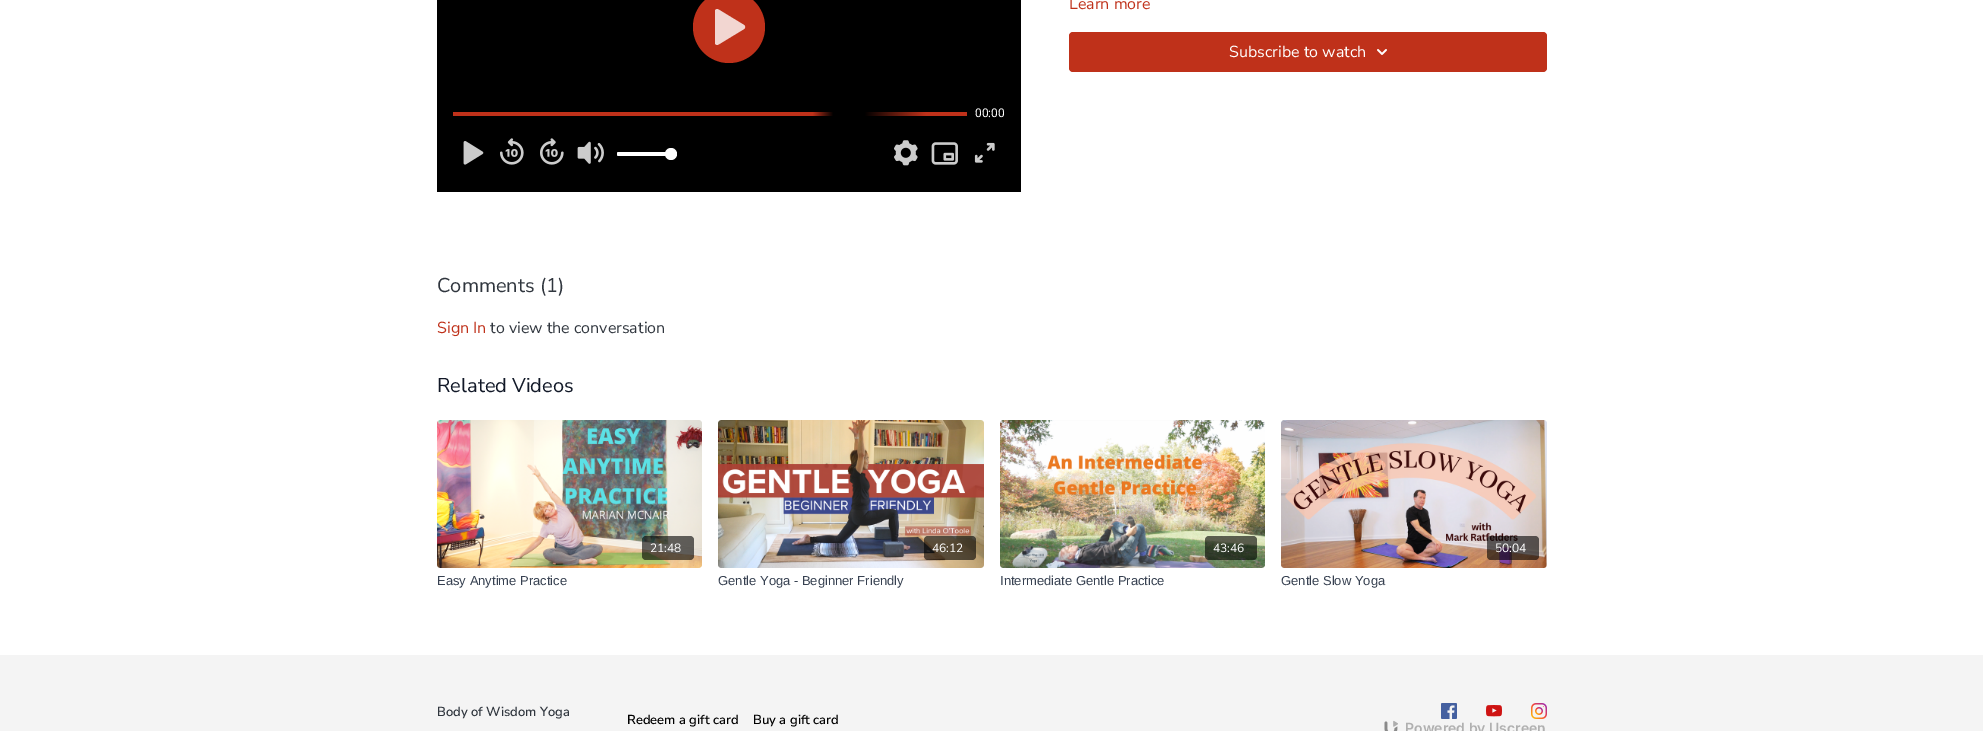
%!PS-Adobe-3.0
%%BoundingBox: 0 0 1983 731
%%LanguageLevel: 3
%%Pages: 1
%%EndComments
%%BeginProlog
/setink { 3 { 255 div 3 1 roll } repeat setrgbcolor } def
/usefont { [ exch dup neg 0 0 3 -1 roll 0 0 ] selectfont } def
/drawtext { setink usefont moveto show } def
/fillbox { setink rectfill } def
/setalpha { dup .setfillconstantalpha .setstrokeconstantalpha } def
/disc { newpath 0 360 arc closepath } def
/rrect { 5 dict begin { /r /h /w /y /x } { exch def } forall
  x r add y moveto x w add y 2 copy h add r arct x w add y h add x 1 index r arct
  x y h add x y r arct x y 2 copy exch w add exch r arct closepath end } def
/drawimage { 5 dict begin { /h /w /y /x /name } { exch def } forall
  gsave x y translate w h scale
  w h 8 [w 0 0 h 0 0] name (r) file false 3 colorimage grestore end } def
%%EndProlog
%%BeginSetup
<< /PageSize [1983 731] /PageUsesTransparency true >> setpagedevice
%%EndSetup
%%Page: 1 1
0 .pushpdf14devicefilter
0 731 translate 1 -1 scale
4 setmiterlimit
0 0 1983 731 255 255 255 fillbox
(Learn more) 1069 9 /NunitoSans-Regular 16 191 49 26 drawtext
1069 32 478 40 4 rrect fill
(Subscribe to watch) 1229 57 /NunitoSans-Regular 16 255 255 255 drawtext
(assets/img1.rgb) 1377 49 10 6 drawimage
437 0 584 192 0 0 0 fillbox
191 49 26 setink
729 27 36 disc fill
242 214 209 setink
718.5 9.5 moveto 717 8.5 715 9.5 715 11 curveto 715 43 lineto 715 44.5 717 45.5 718.5 44.5 curveto 744 29 lineto 745.5 28 745.5 26 744 25 curveto closepath fill
gsave 453 112 514 4 2 rrect clip newpath
<< /ShadingType 2 /ColorSpace /DeviceRGB /Coords [453 116 1481 116] /Extend [true true] /Function << /FunctionType 3 /Domain [0 1] /Functions [<< /FunctionType 2 /Domain [0 1] /C0 [0.749 0.192 0.102] /C1 [0.749 0.192 0.102] /N 1 >> << /FunctionType 2 /Domain [0 1] /C0 [0.749 0.192 0.102] /C1 [0 0 0] /N 1 >> << /FunctionType 2 /Domain [0 1] /C0 [0 0 0] /C1 [0 0 0] /N 1 >> << /FunctionType 2 /Domain [0 1] /C0 [0 0 0] /C1 [0.749 0.192 0.102] /N 1 >> << /FunctionType 2 /Domain [0 1] /C0 [0.749 0.192 0.102] /C1 [0.749 0.192 0.102] /N 1 >>] /Bounds [0.35 0.37 0.4 0.46] /Encode [0 1 0 1 0 1 0 1 0 1] >> >> shfill grestore
(00:00) 975 117 /Roboto-Regular 12 255 255 255 drawtext
(assets/img2.rgb) 463 141 21 24 drawimage
(assets/img3.rgb) 500 138 24 27 drawimage
(assets/img4.rgb) 540 138 24 27 drawimage
(assets/img5.rgb) 577 141 27 23 drawimage
617 152 60 4 1.5 rrect fill
671 154 6 disc fill
(assets/img6.rgb) 894 140 24 26 drawimage
(assets/img7.rgb) 931 142 27 23 drawimage
(assets/img8.rgb) 974 142 21 21 drawimage
(Comments \(1\)) 437 292 /NunitoSans-Regular 20 48 54 62 drawtext
(Sign In) 437 333 /NunitoSans-Regular 16 191 49 26 drawtext
(to view the conversation) 490 333 /NunitoSans-Regular 16 48 54 62 drawtext
(Related Videos) 437 392 /NunitoSans-Regular 20 17 24 39 drawtext
(assets/img9.rgb) 437 420 265 148 drawimage
0.6 setalpha
0 0 0 setink
642 536 52 24 4 rrect fill
1 setalpha
(21:48) 650 552 /NunitoSans-Regular 12 255 255 255 drawtext
(Easy Anytime Practice) 437 585 /LiberationSans-Regular 13 55 65 81 drawtext
(assets/img10.rgb) 718 420 266 148 drawimage
0.6 setalpha
0 0 0 setink
924 536 52 24 4 rrect fill
1 setalpha
(46:12) 932 552 /NunitoSans-Regular 12 255 255 255 drawtext
(Gentle Yoga - Beginner Friendly) 718 585 /LiberationSans-Regular 13 55 65 81 drawtext
(assets/img11.rgb) 1000 420 265 148 drawimage
0.6 setalpha
0 0 0 setink
1205 536 52 24 4 rrect fill
1 setalpha
(43:46) 1213 552 /NunitoSans-Regular 12 255 255 255 drawtext
(Intermediate Gentle Practice) 1000 585 /LiberationSans-Regular 13 55 65 81 drawtext
(assets/img12.rgb) 1281 420 266 148 drawimage
0.6 setalpha
0 0 0 setink
1487 536 52 24 4 rrect fill
1 setalpha
(50:04) 1495 552 /NunitoSans-Regular 12 255 255 255 drawtext
(Gentle Slow Yoga) 1281 585 /LiberationSans-Regular 13 55 65 81 drawtext
0 655 1983 76 244 244 244 fillbox
(Body of Wisdom Yoga) 437 716 /NunitoSans-SemiBold 13 48 54 62 drawtext
(Redeem a gift card) 627 724 /NunitoSans-SemiBold 13 0 0 0 drawtext
(Buy a gift card) 753 724 /NunitoSans-SemiBold 13 0 0 0 drawtext
(assets/img13.rgb) 1441 703 16 16 drawimage
(assets/img14.rgb) 1486 705 16 12 drawimage
(assets/img15.rgb) 1531 703 16 16 drawimage
(assets/img16.rgb) 1384 720 14 11 drawimage
(Powered by Uscreen) 1405 733 /Inter-SemiBold 14 176 176 176 drawtext
.poppdf14devicefilter showpage
%%EOF
